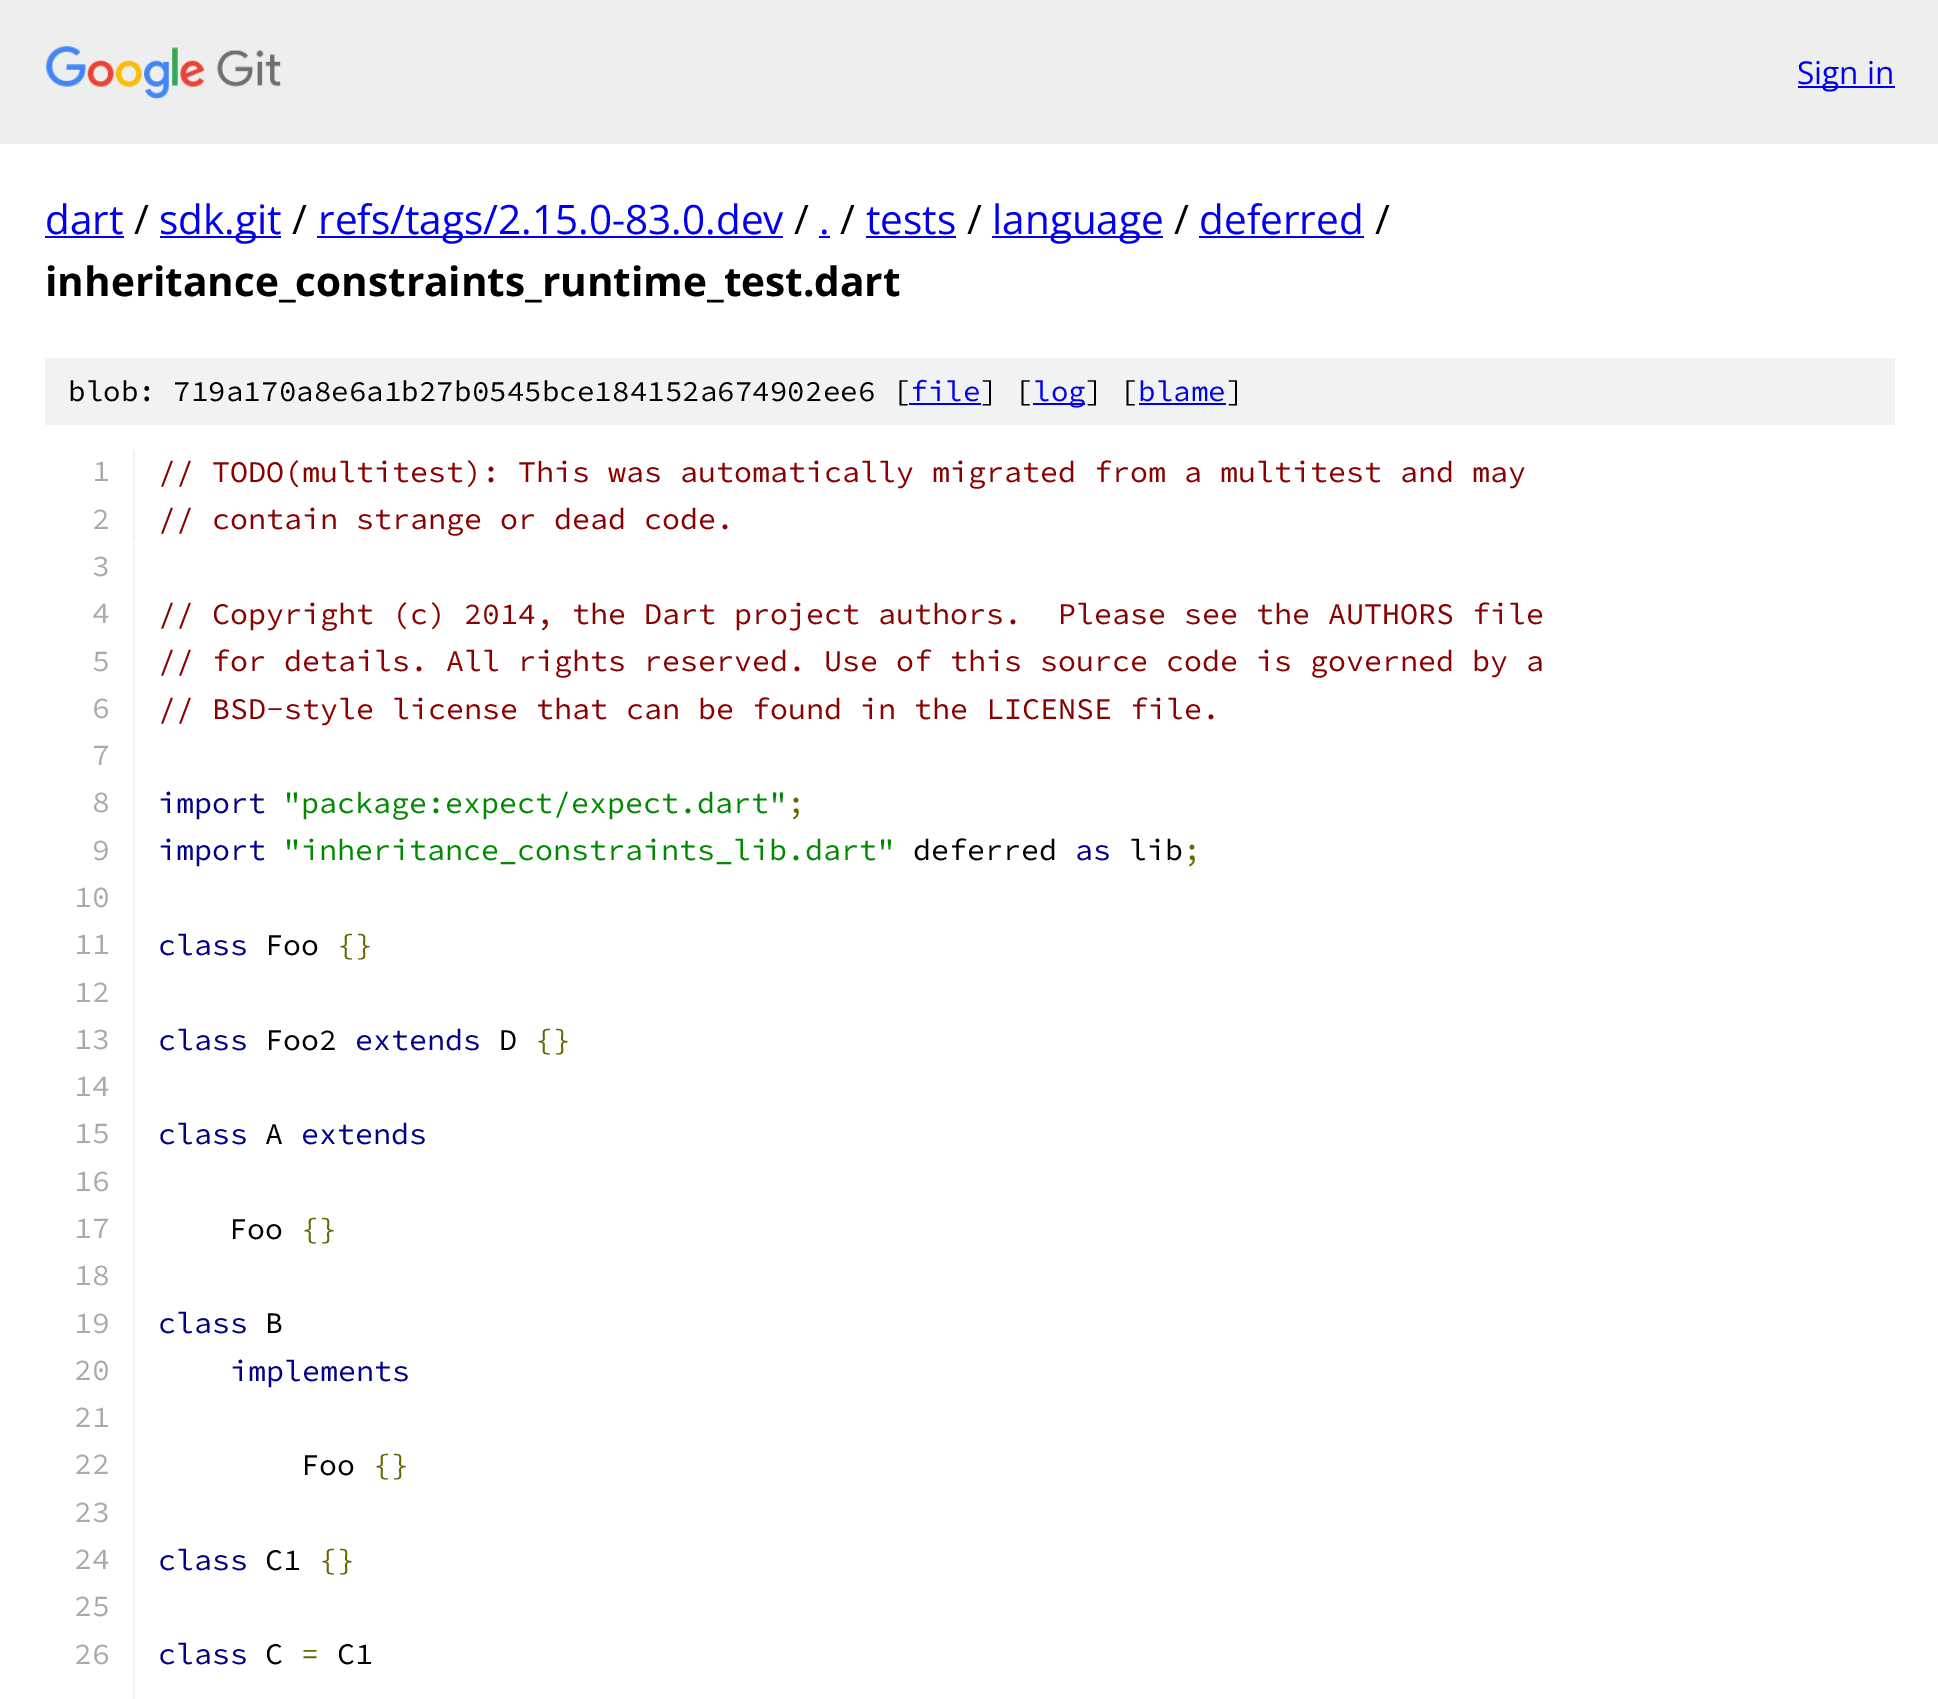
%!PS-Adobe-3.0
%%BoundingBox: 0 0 1938 1699
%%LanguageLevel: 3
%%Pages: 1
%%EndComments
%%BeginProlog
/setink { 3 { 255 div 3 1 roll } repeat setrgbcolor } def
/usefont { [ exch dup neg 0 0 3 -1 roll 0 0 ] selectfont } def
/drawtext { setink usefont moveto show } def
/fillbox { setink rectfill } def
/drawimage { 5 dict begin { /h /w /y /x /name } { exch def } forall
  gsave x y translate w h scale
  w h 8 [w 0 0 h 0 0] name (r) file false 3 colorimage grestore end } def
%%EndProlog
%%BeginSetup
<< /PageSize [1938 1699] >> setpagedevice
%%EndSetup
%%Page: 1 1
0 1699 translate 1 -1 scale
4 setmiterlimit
0 0 1938 1699 255 255 255 fillbox
0 0 1938 144 238 238 238 fillbox
(assets/img1.rgb) 46 46 235 53 drawimage
1798 86 97 2 0 0 238 fillbox
(Sign in) 1797 84 /OpenSans-Regular 31.5 0 0 238 drawtext
(dart) 45 234 /OpenSans-Regular 40.5 0 0 238 drawtext
45 236 79 2 0 0 238 fillbox
(/) 134 234 /OpenSans-Regular 40.5 0 0 0 drawtext
160 236 121 2 0 0 238 fillbox
(sdk.git) 159 234 /OpenSans-Regular 40.5 0 0 238 drawtext
(/) 292 234 /OpenSans-Regular 40.5 0 0 0 drawtext
317 236 466 2 0 0 238 fillbox
(refs/tags/2.15.0-83.0.dev) 318 234 /OpenSans-Regular 40.5 0 0 238 drawtext
(/) 794 234 /OpenSans-Regular 40.5 0 0 0 drawtext
(.) 819 234 /OpenSans-Regular 40.5 0 0 238 drawtext
819 236 11 2 0 0 238 fillbox
(/) 840 234 /OpenSans-Regular 40.5 0 0 0 drawtext
(tests) 866 234 /OpenSans-Regular 40.5 0 0 238 drawtext
866 236 90 2 0 0 238 fillbox
(/) 967 234 /OpenSans-Regular 40.5 0 0 0 drawtext
992 236 171 2 0 0 238 fillbox
(language) 992 234 /OpenSans-Regular 40.5 0 0 238 drawtext
(/) 1174 234 /OpenSans-Regular 40.5 0 0 0 drawtext
(deferred) 1199 234 /OpenSans-Regular 40.5 0 0 238 drawtext
1199 236 165 2 0 0 238 fillbox
(/) 1375 234 /OpenSans-Regular 40.5 0 0 0 drawtext
(inheritance_constraints_runtime_test.dart) 45 296 /OpenSans-Bold 40.5 0 0 0 drawtext
45 358 1850 67 241 242 243 fillbox
(blob: 719a170a8e6a1b27b0545bce184152a674902ee6 [) 68 401 /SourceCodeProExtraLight-ExtraLight 29.25 0 0 0 drawtext
(file) 910 401 /SourceCodeProExtraLight-ExtraLight 29.25 0 0 238 drawtext
909 403 72 2 0 0 238 fillbox
(] [) 980 401 /SourceCodeProExtraLight-ExtraLight 29.25 0 0 0 drawtext
1033 403 52 2 0 0 238 fillbox
(log) 1033 401 /SourceCodeProExtraLight-ExtraLight 29.25 0 0 238 drawtext
(] [) 1085 401 /SourceCodeProExtraLight-ExtraLight 29.25 0 0 0 drawtext
(blame) 1138 401 /SourceCodeProExtraLight-ExtraLight 29.25 0 0 238 drawtext
1139 403 87 2 0 0 238 fillbox
(]) 1226 401 /SourceCodeProExtraLight-ExtraLight 29.25 0 0 0 drawtext
133 450 2 45 241 242 243 fillbox
(1) 92 481 /SourceCodeProExtraLight-ExtraLight 30 170 170 170 drawtext
(// TODO\(multitest\): This was automatically migrated from a multitest and may) 158 482 /SourceCodeProExtraLight-ExtraLight 30 136 0 0 drawtext
133 497 2 45 241 242 243 fillbox
(2) 92 529 /SourceCodeProExtraLight-ExtraLight 30 170 170 170 drawtext
(// contain strange or dead code.) 158 529 /SourceCodeProExtraLight-ExtraLight 30 136 0 0 drawtext
133 545 2 1154 241 242 243 fillbox
(3) 92 576 /SourceCodeProExtraLight-ExtraLight 30 170 170 170 drawtext
(4) 92 623 /SourceCodeProExtraLight-ExtraLight 30 170 170 170 drawtext
(// Copyright \(c\) 2014, the Dart project authors.  Please see the AUTHORS file) 158 624 /SourceCodeProExtraLight-ExtraLight 30 136 0 0 drawtext
(5) 92 671 /SourceCodeProExtraLight-ExtraLight 30 170 170 170 drawtext
(// for details. All rights reserved. Use of this source code is governed by a) 158 671 /SourceCodeProExtraLight-ExtraLight 30 136 0 0 drawtext
(6) 92 718 /SourceCodeProExtraLight-ExtraLight 30 170 170 170 drawtext
(// BSD-style license that can be found in the LICENSE file.) 158 719 /SourceCodeProExtraLight-ExtraLight 30 136 0 0 drawtext
(7) 92 765 /SourceCodeProExtraLight-ExtraLight 30 170 170 170 drawtext
(8) 92 812 /SourceCodeProExtraLight-ExtraLight 30 170 170 170 drawtext
(import) 158 813 /SourceCodeProExtraLight-ExtraLight 30 0 0 136 drawtext
("package:expect/expect.dart") 283 813 /SourceCodeProExtraLight-ExtraLight 30 0 136 0 drawtext
(;) 787 813 /SourceCodeProExtraLight-ExtraLight 30 102 102 0 drawtext
(9) 92 860 /SourceCodeProExtraLight-ExtraLight 30 170 170 170 drawtext
(import) 158 860 /SourceCodeProExtraLight-ExtraLight 30 0 0 136 drawtext
("inheritance_constraints_lib.dart") 283 860 /SourceCodeProExtraLight-ExtraLight 30 0 136 0 drawtext
(deferred) 913 860 /SourceCodeProExtraLight-ExtraLight 30 0 0 0 drawtext
(as) 1075 860 /SourceCodeProExtraLight-ExtraLight 30 0 0 136 drawtext
(lib) 1129 860 /SourceCodeProExtraLight-ExtraLight 30 0 0 0 drawtext
(;) 1183 860 /SourceCodeProExtraLight-ExtraLight 30 102 102 0 drawtext
(10) 74 907 /SourceCodeProExtraLight-ExtraLight 30 170 170 170 drawtext
(11) 74 954 /SourceCodeProExtraLight-ExtraLight 30 170 170 170 drawtext
(class) 158 955 /SourceCodeProExtraLight-ExtraLight 30 0 0 136 drawtext
(Foo) 265 955 /SourceCodeProExtraLight-ExtraLight 30 0 0 0 drawtext
({}) 337 955 /SourceCodeProExtraLight-ExtraLight 30 102 102 0 drawtext
(12) 74 1002 /SourceCodeProExtraLight-ExtraLight 30 170 170 170 drawtext
(13) 74 1049 /SourceCodeProExtraLight-ExtraLight 30 170 170 170 drawtext
(class) 158 1050 /SourceCodeProExtraLight-ExtraLight 30 0 0 136 drawtext
(Foo2) 265 1050 /SourceCodeProExtraLight-ExtraLight 30 0 0 0 drawtext
(extends) 355 1050 /SourceCodeProExtraLight-ExtraLight 30 0 0 136 drawtext
(D) 499 1050 /SourceCodeProExtraLight-ExtraLight 30 0 0 0 drawtext
({}) 535 1050 /SourceCodeProExtraLight-ExtraLight 30 102 102 0 drawtext
(14) 74 1096 /SourceCodeProExtraLight-ExtraLight 30 170 170 170 drawtext
(15) 74 1143 /SourceCodeProExtraLight-ExtraLight 30 170 170 170 drawtext
(class) 158 1144 /SourceCodeProExtraLight-ExtraLight 30 0 0 136 drawtext
(A) 265 1144 /SourceCodeProExtraLight-ExtraLight 30 0 0 0 drawtext
(extends) 301 1144 /SourceCodeProExtraLight-ExtraLight 30 0 0 136 drawtext
(16) 74 1191 /SourceCodeProExtraLight-ExtraLight 30 170 170 170 drawtext
(17) 74 1238 /SourceCodeProExtraLight-ExtraLight 30 170 170 170 drawtext
(Foo) 229 1239 /SourceCodeProExtraLight-ExtraLight 30 0 0 0 drawtext
({}) 301 1239 /SourceCodeProExtraLight-ExtraLight 30 102 102 0 drawtext
(18) 74 1285 /SourceCodeProExtraLight-ExtraLight 30 170 170 170 drawtext
(19) 74 1333 /SourceCodeProExtraLight-ExtraLight 30 170 170 170 drawtext
(class) 158 1333 /SourceCodeProExtraLight-ExtraLight 30 0 0 136 drawtext
(B) 265 1333 /SourceCodeProExtraLight-ExtraLight 30 0 0 0 drawtext
(20) 74 1380 /SourceCodeProExtraLight-ExtraLight 30 170 170 170 drawtext
(implements) 230 1381 /SourceCodeProExtraLight-ExtraLight 30 0 0 136 drawtext
(21) 74 1427 /SourceCodeProExtraLight-ExtraLight 30 170 170 170 drawtext
(22) 74 1474 /SourceCodeProExtraLight-ExtraLight 30 170 170 170 drawtext
(Foo) 301 1475 /SourceCodeProExtraLight-ExtraLight 30 0 0 0 drawtext
({}) 373 1475 /SourceCodeProExtraLight-ExtraLight 30 102 102 0 drawtext
(23) 74 1522 /SourceCodeProExtraLight-ExtraLight 30 170 170 170 drawtext
(24) 74 1569 /SourceCodeProExtraLight-ExtraLight 30 170 170 170 drawtext
(class) 158 1570 /SourceCodeProExtraLight-ExtraLight 30 0 0 136 drawtext
(C1) 265 1570 /SourceCodeProExtraLight-ExtraLight 30 0 0 0 drawtext
({}) 319 1570 /SourceCodeProExtraLight-ExtraLight 30 102 102 0 drawtext
(25) 74 1616 /SourceCodeProExtraLight-ExtraLight 30 170 170 170 drawtext
(26) 74 1664 /SourceCodeProExtraLight-ExtraLight 30 170 170 170 drawtext
(class) 158 1664 /SourceCodeProExtraLight-ExtraLight 30 0 0 136 drawtext
(C) 265 1664 /SourceCodeProExtraLight-ExtraLight 30 0 0 0 drawtext
(=) 301 1664 /SourceCodeProExtraLight-ExtraLight 30 102 102 0 drawtext
(C1) 337 1664 /SourceCodeProExtraLight-ExtraLight 30 0 0 0 drawtext
showpage
%%EOF
